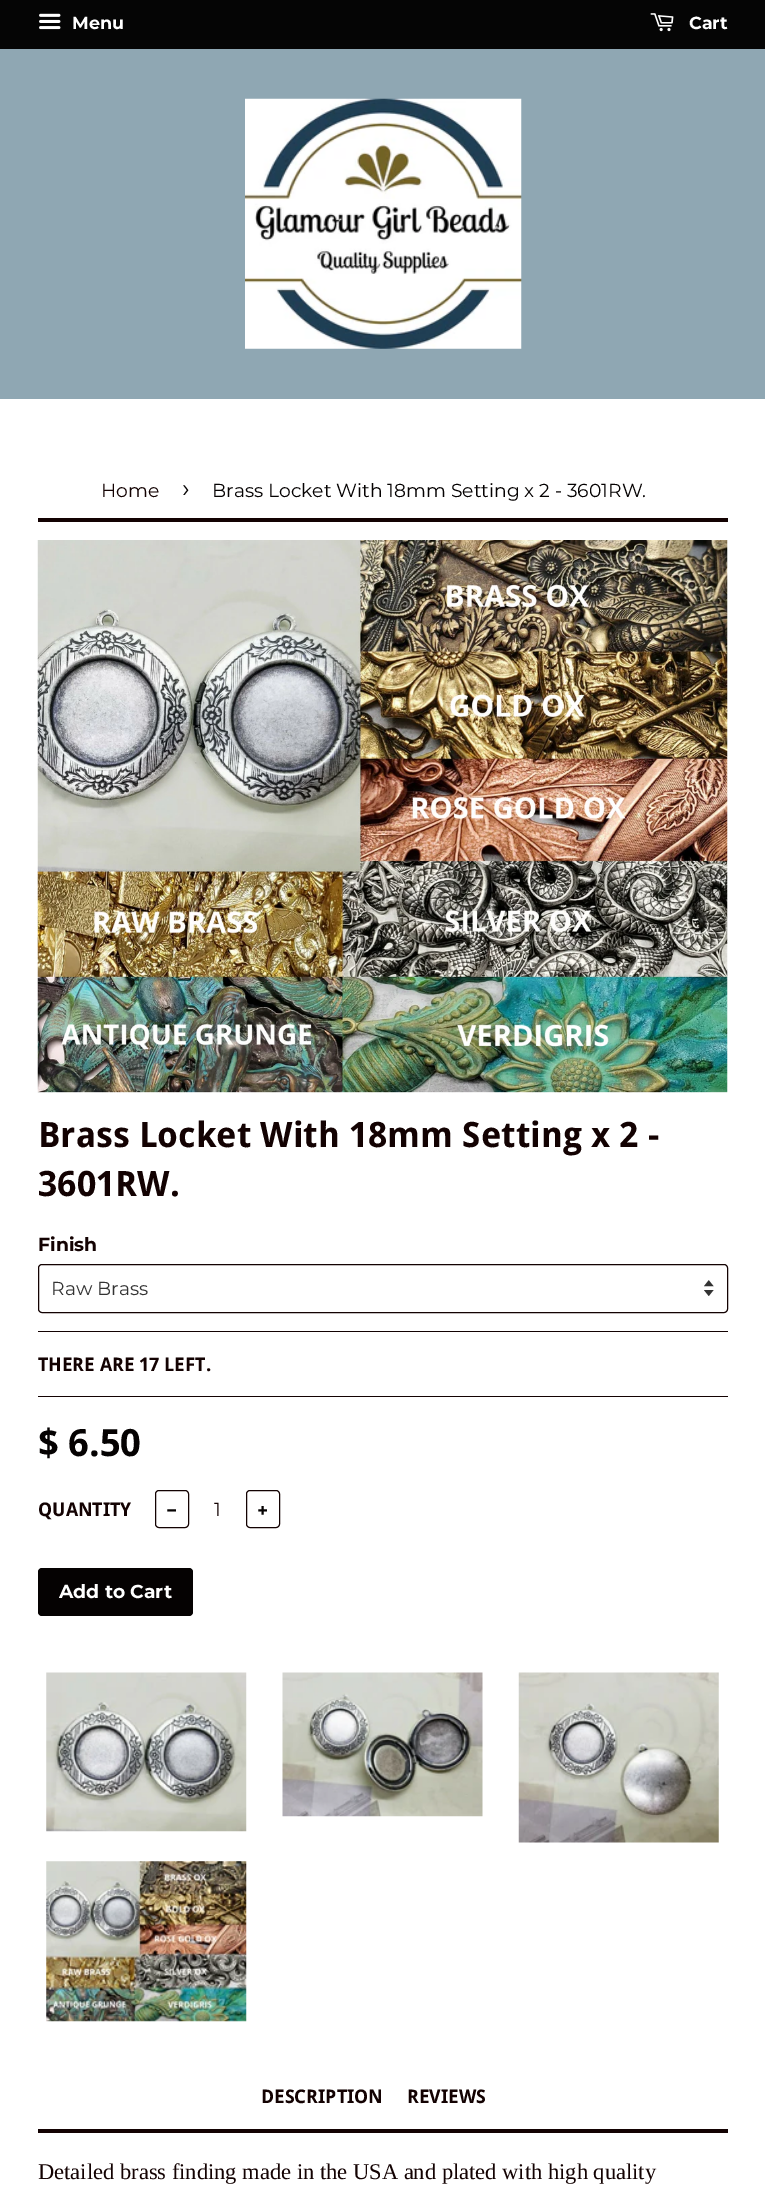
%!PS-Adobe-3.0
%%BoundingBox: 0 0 765 2205
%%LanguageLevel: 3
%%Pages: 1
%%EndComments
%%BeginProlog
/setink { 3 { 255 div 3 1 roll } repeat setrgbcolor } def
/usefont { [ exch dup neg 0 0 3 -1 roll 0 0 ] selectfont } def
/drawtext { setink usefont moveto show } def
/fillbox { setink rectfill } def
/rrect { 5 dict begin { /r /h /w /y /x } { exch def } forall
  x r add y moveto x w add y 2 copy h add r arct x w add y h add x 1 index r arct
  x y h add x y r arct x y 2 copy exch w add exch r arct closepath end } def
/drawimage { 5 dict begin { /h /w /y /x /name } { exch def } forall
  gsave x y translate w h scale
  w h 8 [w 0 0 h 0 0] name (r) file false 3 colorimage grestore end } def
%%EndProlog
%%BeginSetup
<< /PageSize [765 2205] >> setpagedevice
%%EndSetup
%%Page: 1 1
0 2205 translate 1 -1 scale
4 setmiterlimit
0 0 765 2205 255 255 255 fillbox
0 0 765 49 5 5 5 fillbox
(assets/img1.rgb) 39 13 22 17 drawimage
(Menu) 72 29 /Montserrat-Bold 17.5 255 255 255 drawtext
(assets/img2.rgb) 650 13 24 19 drawimage
(Cart) 689 29 /Montserrat-Bold 17.5 255 255 255 drawtext
0 49 765 350 143 167 179 fillbox
(assets/img3.rgb) 245 98 277 251 drawimage
38 518 690 4 19 2 2 fillbox
(Home) 101 497 /Montserrat-Regular 18.75 19 2 2 drawtext
(›) 182 497 /Montserrat-Regular 26 5 2 2 drawtext
(Brass Locket With 18mm Setting x 2 - 3601RW.) 212 497 /Montserrat-Regular 18.75 5 2 2 drawtext
(assets/img4.rgb) 37 540 691 553 drawimage
(Brass Locket With 18mm Setting x 2 -) 38 1147 /DroidSans-Bold 35 19 2 2 drawtext
(3601RW.) 38 1196 /DroidSans-Bold 35 19 2 2 drawtext
(Finish) 38 1251 /Montserrat-Bold 18.75 19 2 2 drawtext
(assets/img5.rgb) 704 1280 10 16 drawimage
38.5 1264.5 689 48 3.5 rrect stroke
(Raw Brass) 51 1295 /Montserrat-Regular 18.75 51 51 51 drawtext
38 1331 690 1 19 2 2 fillbox
(THERE ARE 17 LEFT.) 38 1371 /DroidSans-Bold 18.75 19 2 2 drawtext
38 1396 690 1 19 2 2 fillbox
($ 6.50) 38 1456 /DroidSans-Bold 37.5 5 2 2 drawtext
(QUANTITY) 38 1516 /DroidSans-Bold 18.75 19 2 2 drawtext
155.5 1490.5 33 37 3.5 rrect stroke
(−) 166 1517 /Montserrat-Bold 18.75 5 2 2 drawtext
(1) 214 1516 /Montserrat-Regular 18.75 19 2 2 drawtext
246.5 1490.5 33 37 3.5 rrect stroke
(+) 257 1517 /Montserrat-Bold 18.75 5 2 2 drawtext
38 1568 155 48 4 rrect fill
(Add to Cart) 59 1598 /Montserrat-Bold 18.75 255 255 255 drawtext
(assets/img6.rgb) 46 1672 201 160 drawimage
(assets/img7.rgb) 282 1672 201 145 drawimage
(assets/img8.rgb) 518 1672 201 171 drawimage
(assets/img9.rgb) 46 1861 201 161 drawimage
38 2129 690 4 19 2 2 fillbox
(DESCRIPTION) 261 2103 /DroidSans-Bold 18.75 19 2 2 drawtext
(REVIEWS) 407 2103 /DroidSans-Bold 18.75 19 2 2 drawtext
(Detailed brass finding made in the USA and plated with high quality) 38 2179 /LiberationSerif-Regular 22.5 19 2 2 drawtext
showpage
%%EOF
